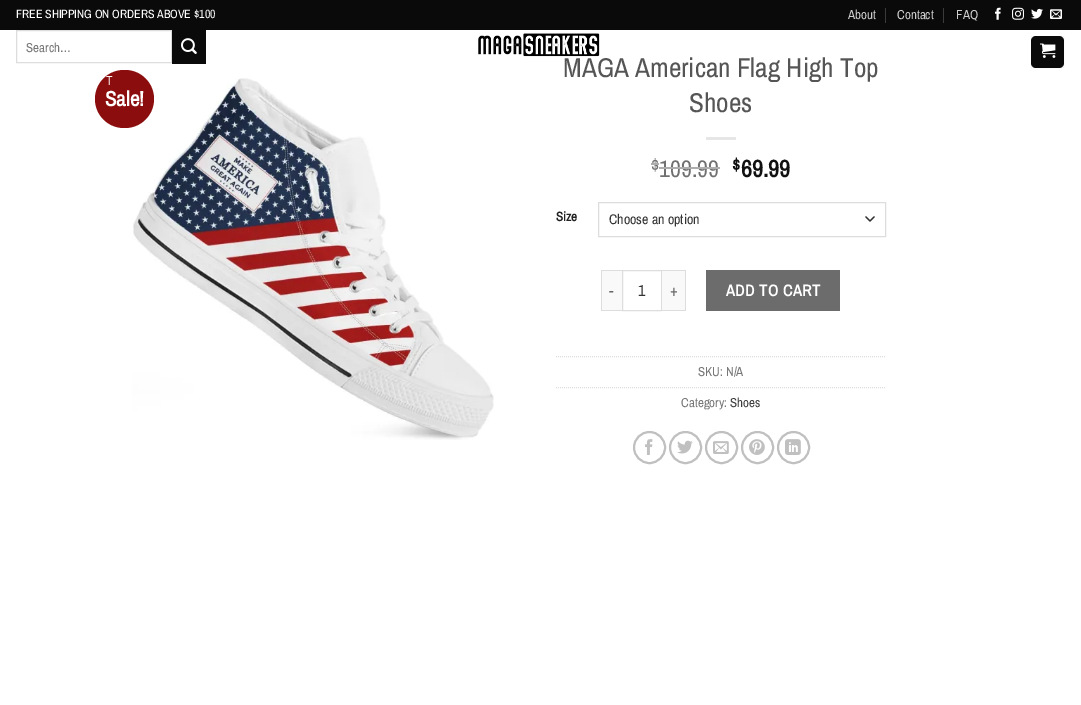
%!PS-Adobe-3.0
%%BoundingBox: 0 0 1081 705
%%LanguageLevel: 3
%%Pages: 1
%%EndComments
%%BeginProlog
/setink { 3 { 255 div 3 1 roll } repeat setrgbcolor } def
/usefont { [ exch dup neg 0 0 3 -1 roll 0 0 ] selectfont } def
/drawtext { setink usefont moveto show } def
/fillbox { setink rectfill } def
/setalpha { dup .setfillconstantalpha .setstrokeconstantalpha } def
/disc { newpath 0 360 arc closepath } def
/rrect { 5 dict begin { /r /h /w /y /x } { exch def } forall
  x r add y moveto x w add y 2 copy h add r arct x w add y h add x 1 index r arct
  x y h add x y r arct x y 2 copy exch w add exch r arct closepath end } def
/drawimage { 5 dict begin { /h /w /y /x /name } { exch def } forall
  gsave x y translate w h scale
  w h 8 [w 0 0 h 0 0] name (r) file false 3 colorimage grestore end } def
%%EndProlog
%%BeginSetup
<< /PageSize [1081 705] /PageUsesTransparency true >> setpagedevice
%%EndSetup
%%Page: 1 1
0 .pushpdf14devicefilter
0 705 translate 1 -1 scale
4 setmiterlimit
0 0 1081 705 255 255 255 fillbox
0 0 1081 30 10 10 10 fillbox
(FREE SHIPPING ON ORDERS ABOVE $100) 16 18 /ArchivoNarrow-Regular 12 255 255 255 drawtext
(About) 848 19 /ArchivoNarrow-Regular 13 206 206 206 drawtext
885 8 1 15 59 59 59 fillbox
(Contact) 897 19 /ArchivoNarrow-Regular 13 206 206 206 drawtext
943 8 1 15 59 59 59 fillbox
(FAQ) 956 19 /ArchivoNarrow-Regular 13 206 206 206 drawtext
(assets/img1.rgb) 995 7 6 13 drawimage
(assets/img2.rgb) 1012 7 12 13 drawimage
(assets/img3.rgb) 1031 8 12 11 drawimage
(assets/img4.rgb) 1050 9 12 10 drawimage
221 221 221 setink
16.5 30.5 155 32 rectstroke
(Search…) 26 52 /ArchivoNarrow-Regular 13 119 119 119 drawtext
172 30 34 34 10 10 10 fillbox
(assets/img5.rgb) 181 38 16 16 drawimage
(assets/img6.rgb) 478 33 122 24 drawimage
1031 36 33 32 5 rrect fill
0.05 setalpha
0 0 0 setink
1031.5 36.5 32 31 rectstroke
1 setalpha
(assets/img7.rgb) 1040 43 16 15 drawimage
(assets/img8.rgb) 132 78 362 362 drawimage
139 13 13 setink
95 70 59 58 29 rrect fill
(T) 106 85 /ArchivoNarrow-Regular 13 251 246 246 drawtext
(Sale!) 105 106 /ArchivoNarrow-Bold 21 255 255 255 drawtext
(MAGA American Flag High Top) 563 77 /ArchivoNarrow-Regular 27.25 85 85 85 drawtext
(Shoes) 689 112 /ArchivoNarrow-Regular 27.25 85 85 85 drawtext
706 137 30 3 230 230 230 fillbox
($) 651 171 /ArchivoNarrow-Regular 18 112 112 112 drawtext
651 163 8 2 173 173 173 fillbox
(109.99) 659 177 /ArchivoNarrow-Regular 24 112 112 112 drawtext
659 167 61 2 173 173 173 fillbox
($) 732 171 /ArchivoNarrow-Bold 18 17 17 17 drawtext
(69.99) 741 177 /ArchivoNarrow-Bold 24 17 17 17 drawtext
(Size) 556 221 /ArchivoNarrow-Bold 13 34 34 34 drawtext
51 51 51 setink
1.3 setlinewidth
1 setlinecap
1 setlinejoin
866 217 moveto 870 221 lineto 874 217 lineto stroke
221 221 221 setink
1 setlinewidth
0 setlinecap
0 setlinejoin
598.5 202.5 287 34 rectstroke
(Choose an option) 609 224 /ArchivoNarrow-Regular 14 51 51 51 drawtext
602 271 20 39 249 249 249 fillbox
601 270 21 1 221 221 221 fillbox
601 310 21 1 221 221 221 fillbox
601 270 1 41 221 221 221 fillbox
(-) 609 296 /ArchivoNarrow-Regular 16 102 102 102 drawtext
221 221 221 setink
622.5 270.5 39 40 rectstroke
(1) 638 296 /ArchivoNarrow-Regular 16 51 51 51 drawtext
662 271 23 39 249 249 249 fillbox
662 270 24 1 221 221 221 fillbox
685 270 1 41 221 221 221 fillbox
662 310 24 1 221 221 221 fillbox
(+) 670 296 /ArchivoNarrow-Regular 16 102 102 102 drawtext
706 270 134 41 108 108 108 fillbox
/ArchivoNarrow-Bold 16 usefont
255 255 255 setink
726 296 moveto 0.5 0 (ADD TO CART) ashow
221 221 221 setink
[1 1] 0 setdash
556 356.5 moveto 886 356.5 lineto stroke
(SKU: N/A) 698 376 /ArchivoNarrow-Regular 13 119 119 119 drawtext
221 221 221 setink
556 387.5 moveto 886 387.5 lineto stroke
(Category:) 681 407 /ArchivoNarrow-Regular 13 119 119 119 drawtext
(Shoes) 730 407 /ArchivoNarrow-Regular 13 61 61 61 drawtext
192 192 192 setink
2 setlinewidth
[] 0 setdash
649.5 447.5 15.5 disc stroke
(assets/img9.rgb) 645 439 8 16 drawimage
685.5 447.5 15.5 disc stroke
(assets/img10.rgb) 677 440 16 14 drawimage
721.5 447.5 15.5 disc stroke
(assets/img11.rgb) 713 441 16 13 drawimage
757.5 447.5 15.5 disc stroke
(assets/img12.rgb) 749 439 16 16 drawimage
793.5 447.5 15.5 disc stroke
(assets/img13.rgb) 785 439 16 16 drawimage
.poppdf14devicefilter showpage
%%EOF
